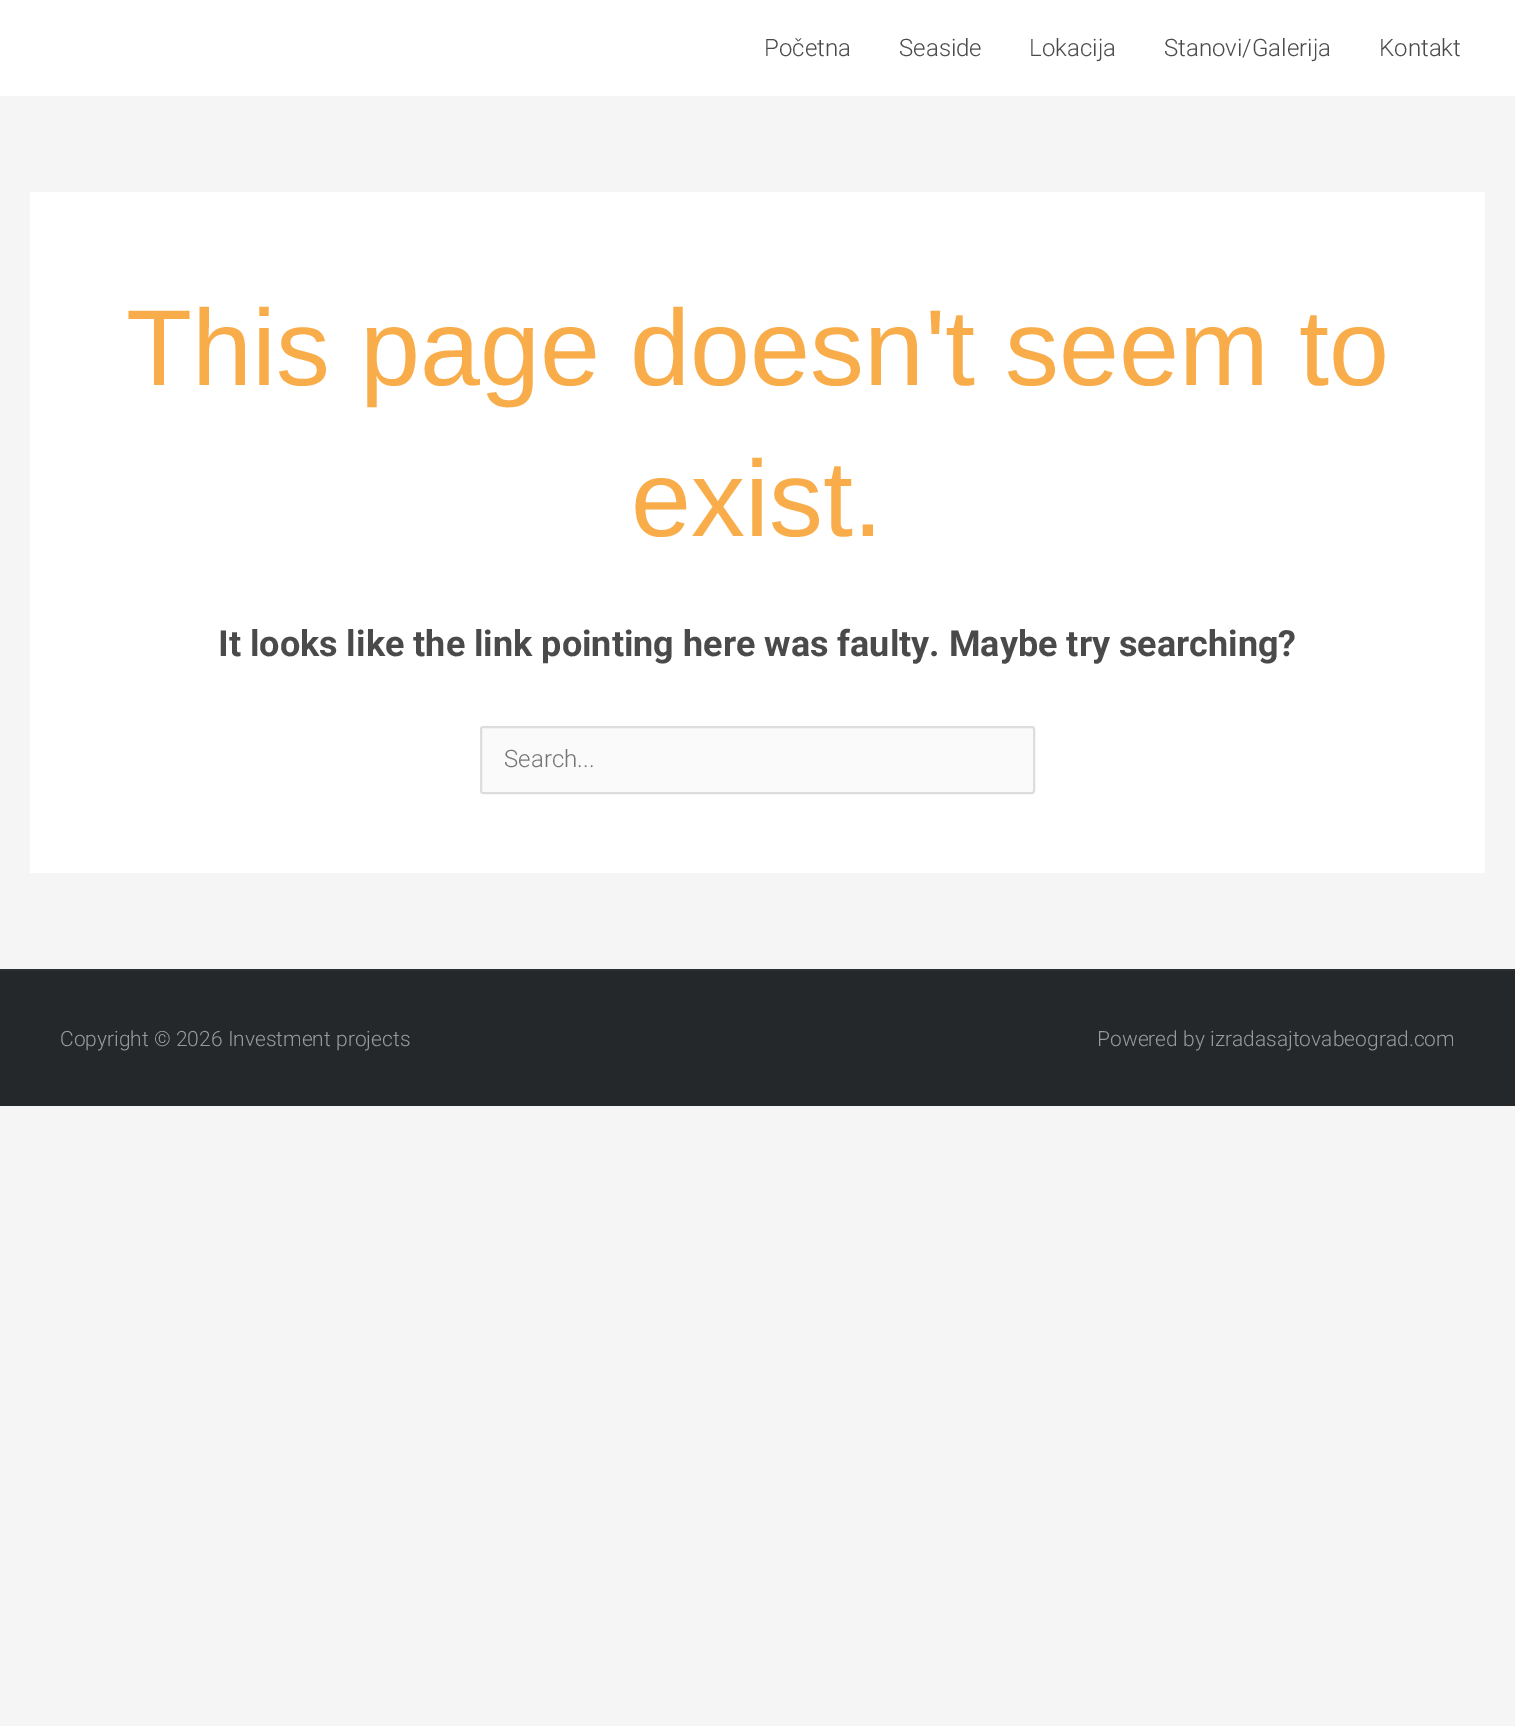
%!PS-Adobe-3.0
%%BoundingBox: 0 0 1515 1726
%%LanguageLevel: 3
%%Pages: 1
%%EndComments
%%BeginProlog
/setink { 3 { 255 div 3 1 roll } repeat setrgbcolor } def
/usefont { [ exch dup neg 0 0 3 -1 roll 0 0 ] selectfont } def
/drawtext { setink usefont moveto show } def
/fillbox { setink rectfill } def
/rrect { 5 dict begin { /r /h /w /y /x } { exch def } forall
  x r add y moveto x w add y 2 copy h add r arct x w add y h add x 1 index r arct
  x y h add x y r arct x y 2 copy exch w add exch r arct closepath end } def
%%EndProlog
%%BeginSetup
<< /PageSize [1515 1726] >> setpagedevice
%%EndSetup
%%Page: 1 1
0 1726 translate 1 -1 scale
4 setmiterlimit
0 0 1515 1726 245 245 245 fillbox
0 0 1515 96 255 255 255 fillbox
(Početna) 764 56 /Roboto-Light 24 74 74 74 drawtext
(Seaside) 899 56 /Roboto-Light 24 74 74 74 drawtext
(Lokacija) 1029 56 /Roboto-Light 24 74 74 74 drawtext
(Stanovi/Galerija) 1164 56 /Roboto-Light 24 74 74 74 drawtext
(Kontakt) 1379 56 /Roboto-Light 24 74 74 74 drawtext
30 192 1455 681 255 255 255 fillbox
(This page doesn't seem to) 126 385 /LiberationSans-Regular 108 249 173 74 drawtext
(exist.) 631 536 /LiberationSans-Regular 108 249 173 74 drawtext
(It looks like the link pointing here was faulty. Maybe try searching?) 218 656 /Roboto-Bold 36 74 74 74 drawtext
250 250 250 setink
481 727 553 66 2 rrect gsave fill grestore
221 221 221 setink
2 setlinewidth
stroke
(Search...) 504 767 /Roboto-Light 24 117 117 117 drawtext
0 971 1515 135 36 40 43 fillbox
0 969 1515 2 44 48 51 fillbox
(Copyright © 2026 Investment projects) 60 1046 /Roboto-Light 21 154 154 154 drawtext
(Powered by izradasajtovabeograd.com) 1097 1046 /Roboto-Light 21 154 154 154 drawtext
showpage
%%EOF
